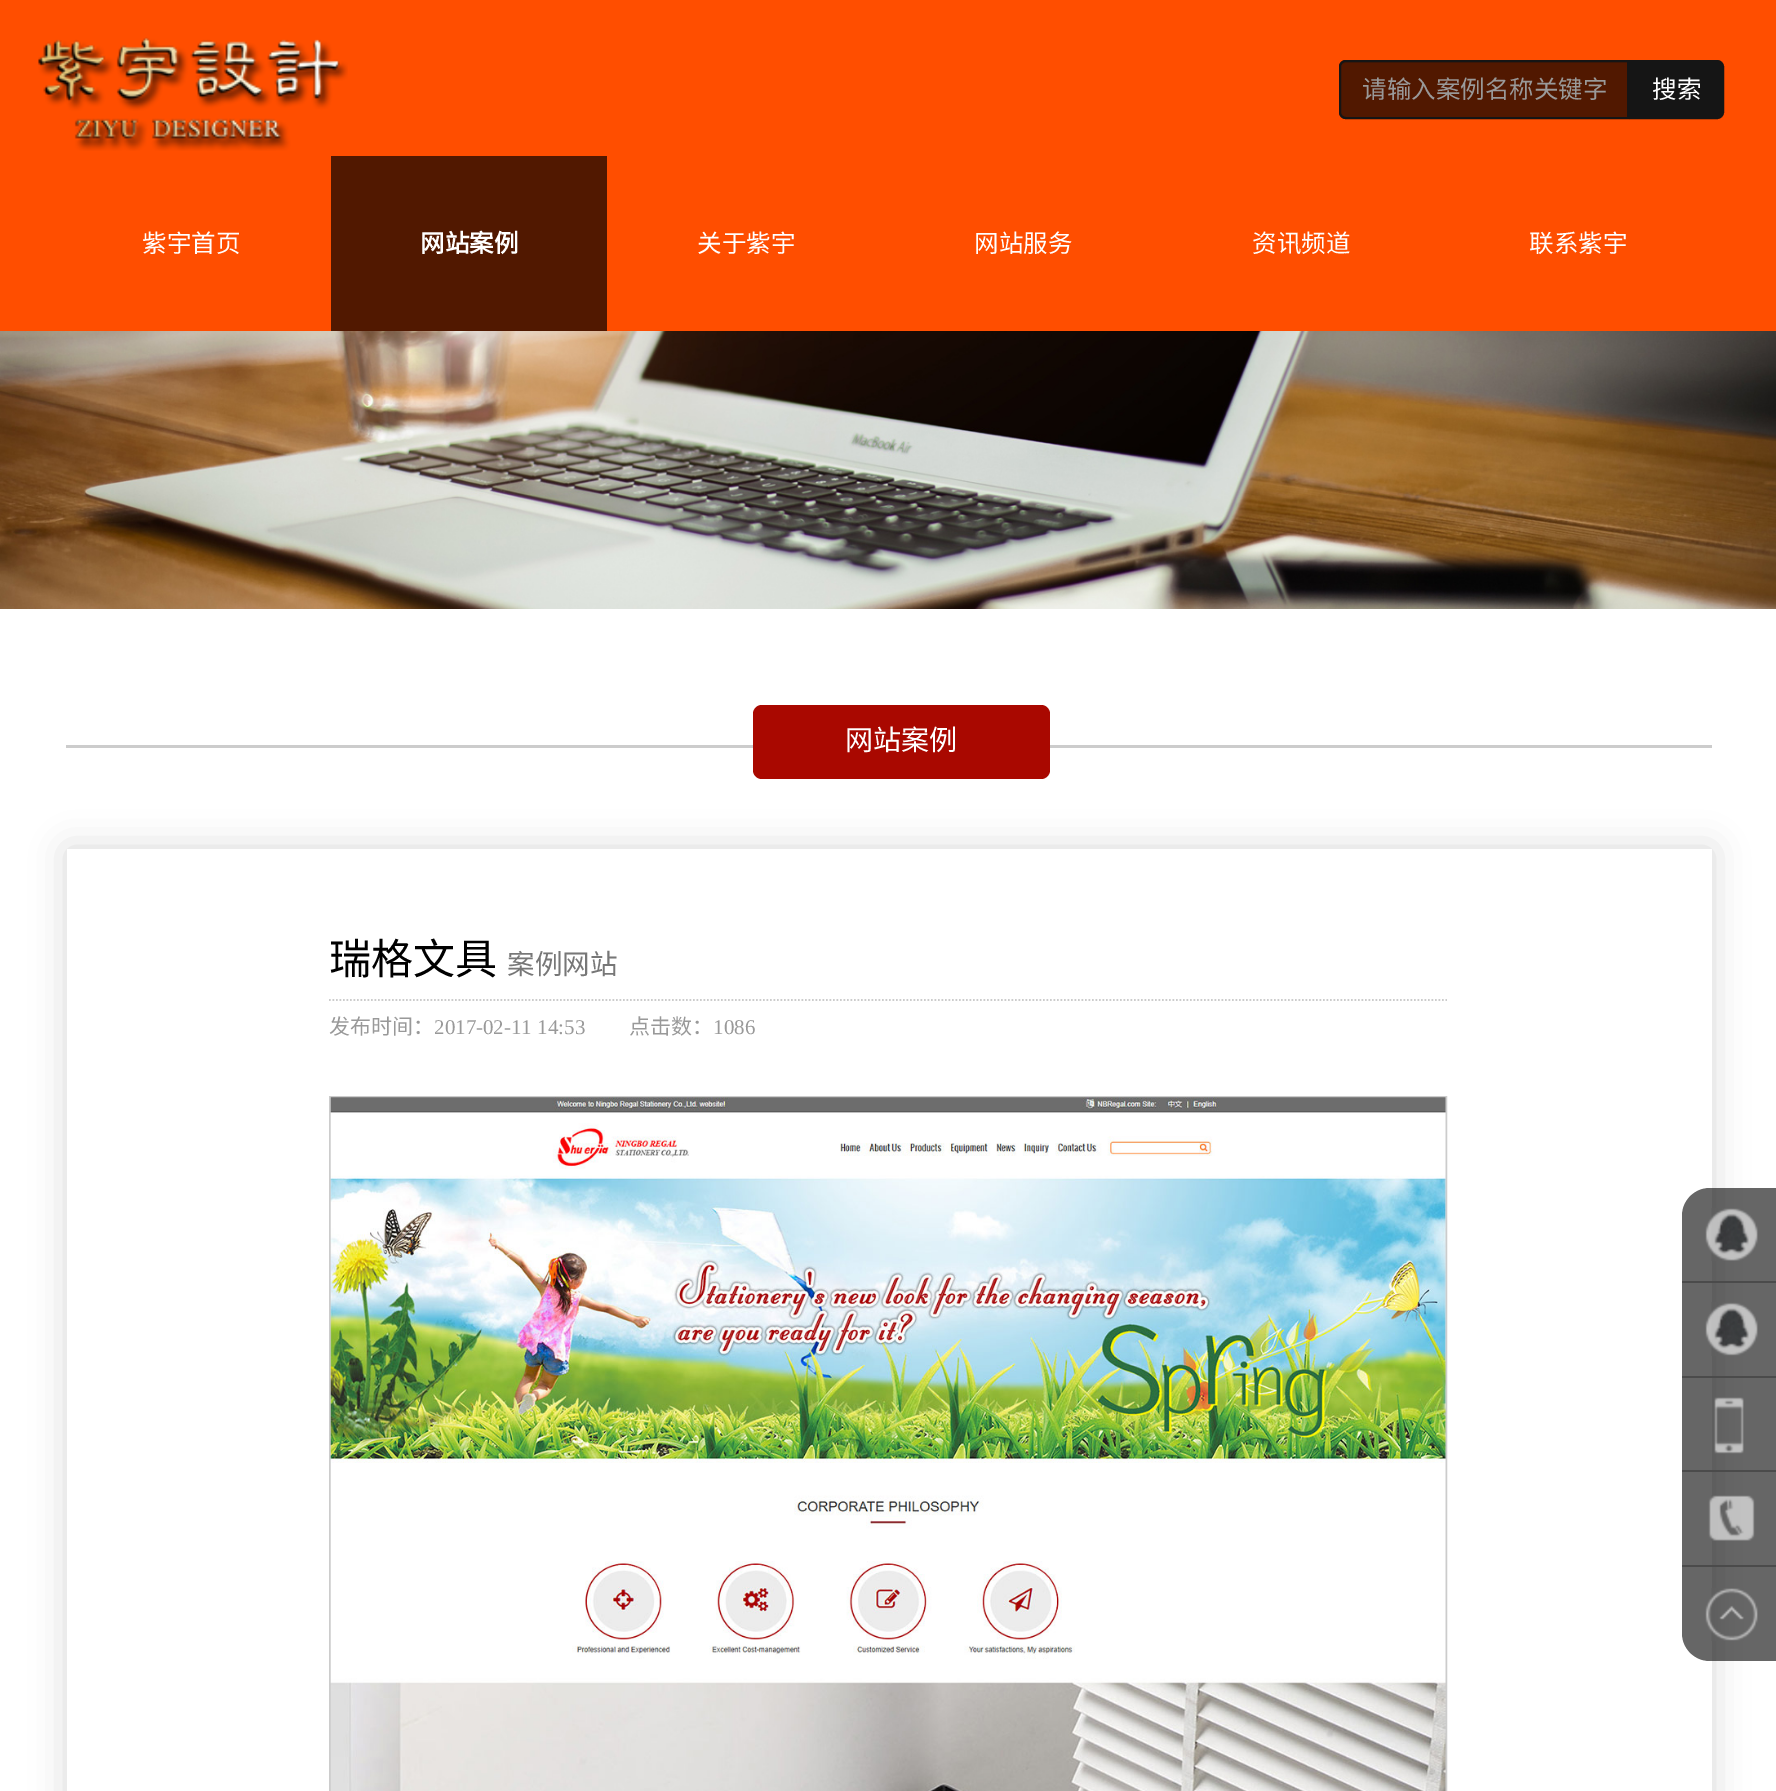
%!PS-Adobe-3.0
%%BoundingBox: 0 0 1776 1791
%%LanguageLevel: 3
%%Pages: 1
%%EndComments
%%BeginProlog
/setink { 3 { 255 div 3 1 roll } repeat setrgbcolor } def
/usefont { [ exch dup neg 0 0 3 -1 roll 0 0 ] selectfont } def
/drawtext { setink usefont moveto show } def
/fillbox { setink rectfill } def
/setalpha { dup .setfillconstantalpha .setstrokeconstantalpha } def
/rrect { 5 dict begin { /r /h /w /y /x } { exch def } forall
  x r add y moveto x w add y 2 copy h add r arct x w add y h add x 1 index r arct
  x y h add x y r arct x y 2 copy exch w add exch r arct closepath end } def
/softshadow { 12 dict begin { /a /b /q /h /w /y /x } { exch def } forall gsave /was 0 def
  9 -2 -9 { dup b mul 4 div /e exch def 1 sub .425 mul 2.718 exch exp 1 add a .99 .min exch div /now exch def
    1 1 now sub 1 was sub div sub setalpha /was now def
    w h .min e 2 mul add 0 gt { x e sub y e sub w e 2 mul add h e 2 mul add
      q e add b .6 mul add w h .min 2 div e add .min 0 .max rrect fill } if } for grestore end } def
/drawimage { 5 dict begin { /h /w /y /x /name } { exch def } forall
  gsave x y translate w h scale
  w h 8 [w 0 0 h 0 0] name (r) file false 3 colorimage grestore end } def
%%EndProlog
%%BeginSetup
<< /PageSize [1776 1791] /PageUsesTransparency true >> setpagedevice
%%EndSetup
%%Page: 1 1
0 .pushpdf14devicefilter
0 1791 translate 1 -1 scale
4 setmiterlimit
0 0 1776 1791 255 255 255 fillbox
0 0 1776 331 255 78 0 fillbox
(assets/img1.rgb) 38 37 310 114 drawimage
81 24 0 setink
1346 60 moveto 1629 60 lineto 1629 119 lineto 1346 119 lineto 1342 119 1339 116 1339 112 curveto 1339 67 lineto 1339 63 1342 60 1346 60 curveto closepath fill
75 22 0 setink
1346 63 moveto 1628 63 lineto 1628 61 lineto 1346 61 lineto 1344 61 1341 63 1341 65 curveto 1342 64 1344 63 1346 63 curveto closepath fill
21 21 21 setink
2 setlinewidth
1346 61 moveto 1628 61 lineto 1628 118 lineto 1346 118 lineto 1342.5 118 1340 115.5 1340 112 curveto 1340 67 lineto 1340 63.5 1342.5 61 1346 61 curveto closepath stroke
(请输入案例名称关键字) 1362 98 /NotoSansCJKSC-Regular 24.5 153 153 153 drawtext
21 21 21 setink
1630 61 moveto 1717 61 lineto 1720.5 61 1723 63.5 1723 67 curveto 1723 112 lineto 1723 115.5 1720.5 118 1717 118 curveto 1630 118 lineto closepath gsave fill grestore
stroke
(搜索) 1652 98 /NotoSansCJKSC-Regular 24.5 255 255 255 drawtext
(紫宇首页) 142 252 /NotoSansCJKSC-Regular 24.5 255 255 255 drawtext
331 156 276 175 81 24 0 fillbox
(网站案例) 420 252 /NotoSansCJKSC-Bold 24.5 255 255 255 drawtext
(关于紫宇) 697 252 /NotoSansCJKSC-Regular 24.5 255 255 255 drawtext
(网站服务) 974 252 /NotoSansCJKSC-Regular 24.5 255 255 255 drawtext
(资讯频道) 1252 252 /NotoSansCJKSC-Regular 24.5 255 255 255 drawtext
(联系紫宇) 1529 252 /NotoSansCJKSC-Regular 24.5 255 255 255 drawtext
(assets/img2.rgb) 0 331 1776 278 drawimage
66 745 1646 3 204 204 204 fillbox
169 8 0 setink
753 705 297 74 9 rrect fill
(网站案例) 845 750 /NotoSansCJKSC-Regular 28 255 255 255 drawtext
gsave
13 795 moveto 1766 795 lineto 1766 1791 lineto 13 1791 lineto closepath 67 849 moveto 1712 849 lineto 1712 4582 lineto 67 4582 lineto closepath eoclip newpath
0 0 0 setink
67 849 1645 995 0 17.5 0.15 softshadow
grestore
(瑞格文具) 329 974 /NotoSansCJKSC-Regular 42 0 0 0 drawtext
(案例网站) 507 974 /NotoSansCJKSC-Regular 27.5 119 119 119 drawtext
204 204 204 setink
1.8 setlinewidth
[1.75 1.75] 0 setdash
329 1000 moveto 1447 1000 lineto stroke
(发布时间：) 329 1034 /NotoSansCJKSC-Regular 21 153 153 153 drawtext
(2017-02-11 14:53) 434 1034 /LiberationSerif-Regular 21 153 153 153 drawtext
(点击数：) 629 1034 /NotoSansCJKSC-Regular 21 153 153 153 drawtext
(1086) 713 1034 /LiberationSerif-Regular 21 153 153 153 drawtext
204 204 204 setink
2 setlinewidth
[] 0 setdash
330 1097 1116 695 rectstroke
(assets/img3.rgb) 330 1097 1116 694 drawimage
1682 1281 94 2 187 187 187 fillbox
0.6 setalpha
0 0 0 setink
1710 1188 moveto 1776 1188 lineto 1776 1283 lineto 1682 1283 lineto 1682 1216 lineto 1682 1200.5 1694.5 1188 1710 1188 curveto closepath fill
1 setalpha
(assets/img4.rgb) 1705 1208 53 53 drawimage
1682 1376 94 2 187 187 187 fillbox
0.6 setalpha
1682 1283 94 94 0 0 0 fillbox
1 setalpha
(assets/img5.rgb) 1705 1302 53 54 drawimage
1682 1470 94 2 187 187 187 fillbox
0.6 setalpha
1682 1377 94 95 0 0 0 fillbox
1 setalpha
(assets/img6.rgb) 1714 1397 30 57 drawimage
1682 1565 94 2 187 187 187 fillbox
0.6 setalpha
1682 1472 94 94 0 0 0 fillbox
1 setalpha
(assets/img7.rgb) 1708 1495 47 46 drawimage
0.6 setalpha
1682 1566 moveto 1776 1566 lineto 1776 1661 lineto 1710 1661 lineto 1694.5 1661 1682 1648.5 1682 1633 curveto closepath fill
1 setalpha
(assets/img8.rgb) 1705 1588 53 53 drawimage
.poppdf14devicefilter showpage
%%EOF
